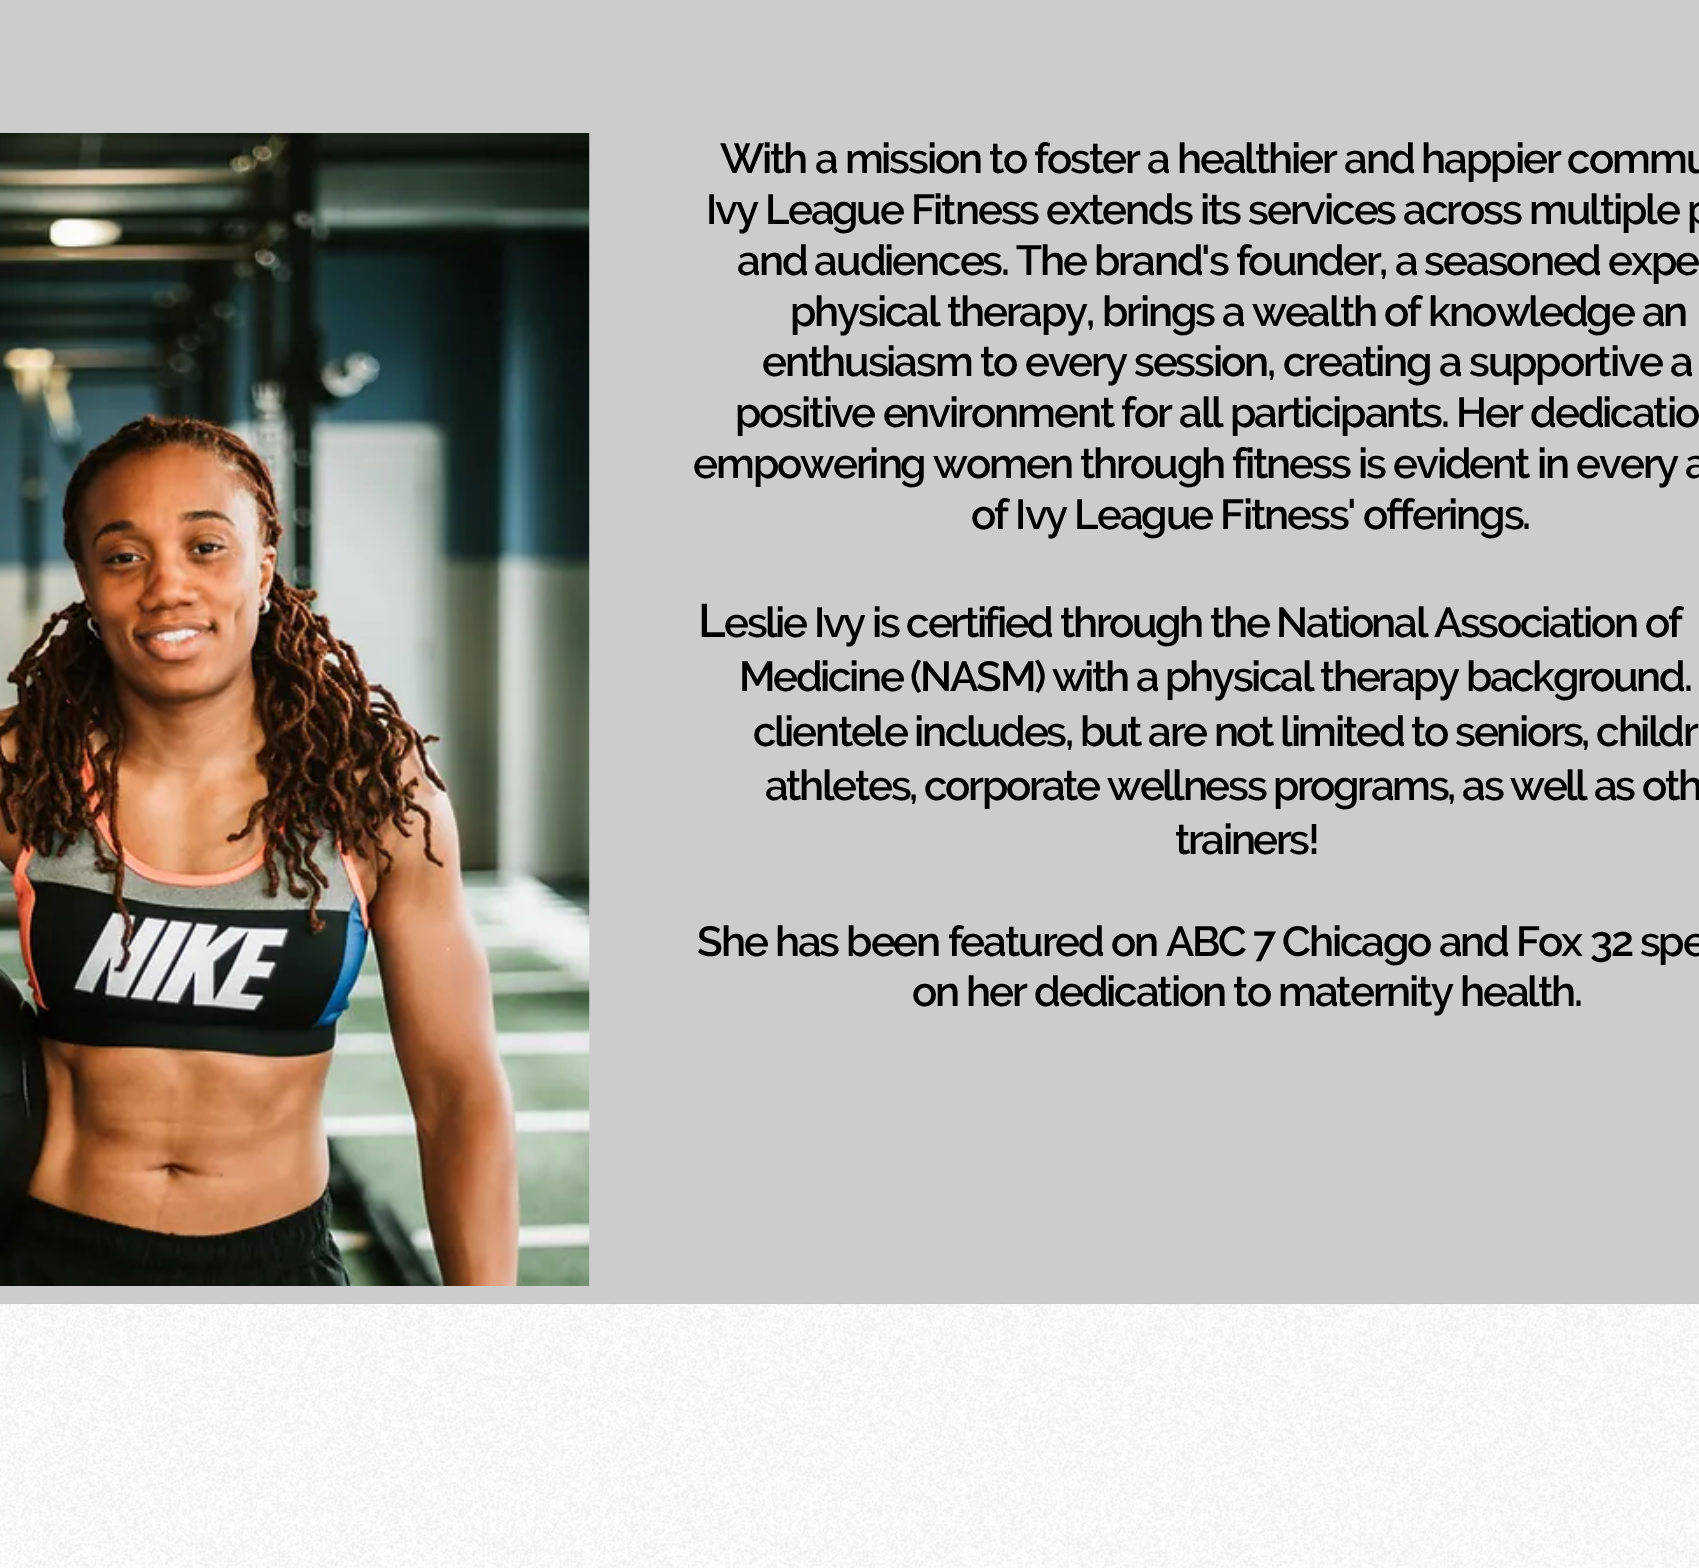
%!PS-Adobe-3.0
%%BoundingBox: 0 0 1699 1568
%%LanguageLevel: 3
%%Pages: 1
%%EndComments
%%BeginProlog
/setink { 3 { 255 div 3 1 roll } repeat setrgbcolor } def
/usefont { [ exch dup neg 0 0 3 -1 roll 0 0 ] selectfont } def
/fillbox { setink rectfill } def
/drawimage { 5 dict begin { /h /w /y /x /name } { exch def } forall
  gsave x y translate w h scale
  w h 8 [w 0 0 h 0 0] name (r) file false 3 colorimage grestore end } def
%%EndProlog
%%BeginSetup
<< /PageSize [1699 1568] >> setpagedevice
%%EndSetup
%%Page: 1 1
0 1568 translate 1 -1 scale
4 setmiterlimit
0 0 1699 1568 204 204 204 fillbox
(assets/img1.rgb) 0 133 590 1153 drawimage
/Raleway-SemiBold 42 usefont
0 0 0 setink
720 173 moveto -2.1 0 (With a mission to foster a healthier and happier commu) ashow
706 224 moveto -2.1 0 (Ivy League Fitness extends its services across multiple p) ashow
737 275 moveto -2.1 0 (and audiences. The brand's founder, a seasoned expe) ashow
790 326 moveto -2.1 0 (physical therapy, brings a wealth of knowledge an) ashow
762 376 moveto -2.1 0 (enthusiasm to every session, creating a supportive a) ashow
735 427 moveto -2.1 0 (positive environment for all participants. Her dedicatio) ashow
693 478 moveto -2.1 0 (empowering women through fitness is evident in every a) ashow
971 529 moveto -2.1 0 (of Ivy League Fitness' offerings.) ashow
/Raleway-SemiBold 47 usefont
698 637 moveto -2.35 0 (L) ashow
/Raleway-SemiBold 42 usefont
724 637 moveto -2.35 0 (eslie Ivy is certified through the National Association of) ashow
739 691 moveto -2.35 0 (Medicine \(NASM\) with a physical therapy background.) ashow
753 746 moveto -2.35 0 (clientele includes, but are not limited to seniors, childr) ashow
765 800 moveto -2.35 0 (athletes, corporate wellness programs, as well as oth) ashow
1175 854 moveto -2.35 0 (trainers!) ashow
697 956 moveto -2.1 0 (She has been featured on ABC 7 Chicago and Fox 32 spe) ashow
912 1006 moveto -2.1 0 (on her dedication to maternity health.) ashow
0 1304 1699 264 255 255 255 fillbox
(assets/img2.rgb) 0 1303 1699 265 drawimage
showpage
%%EOF
